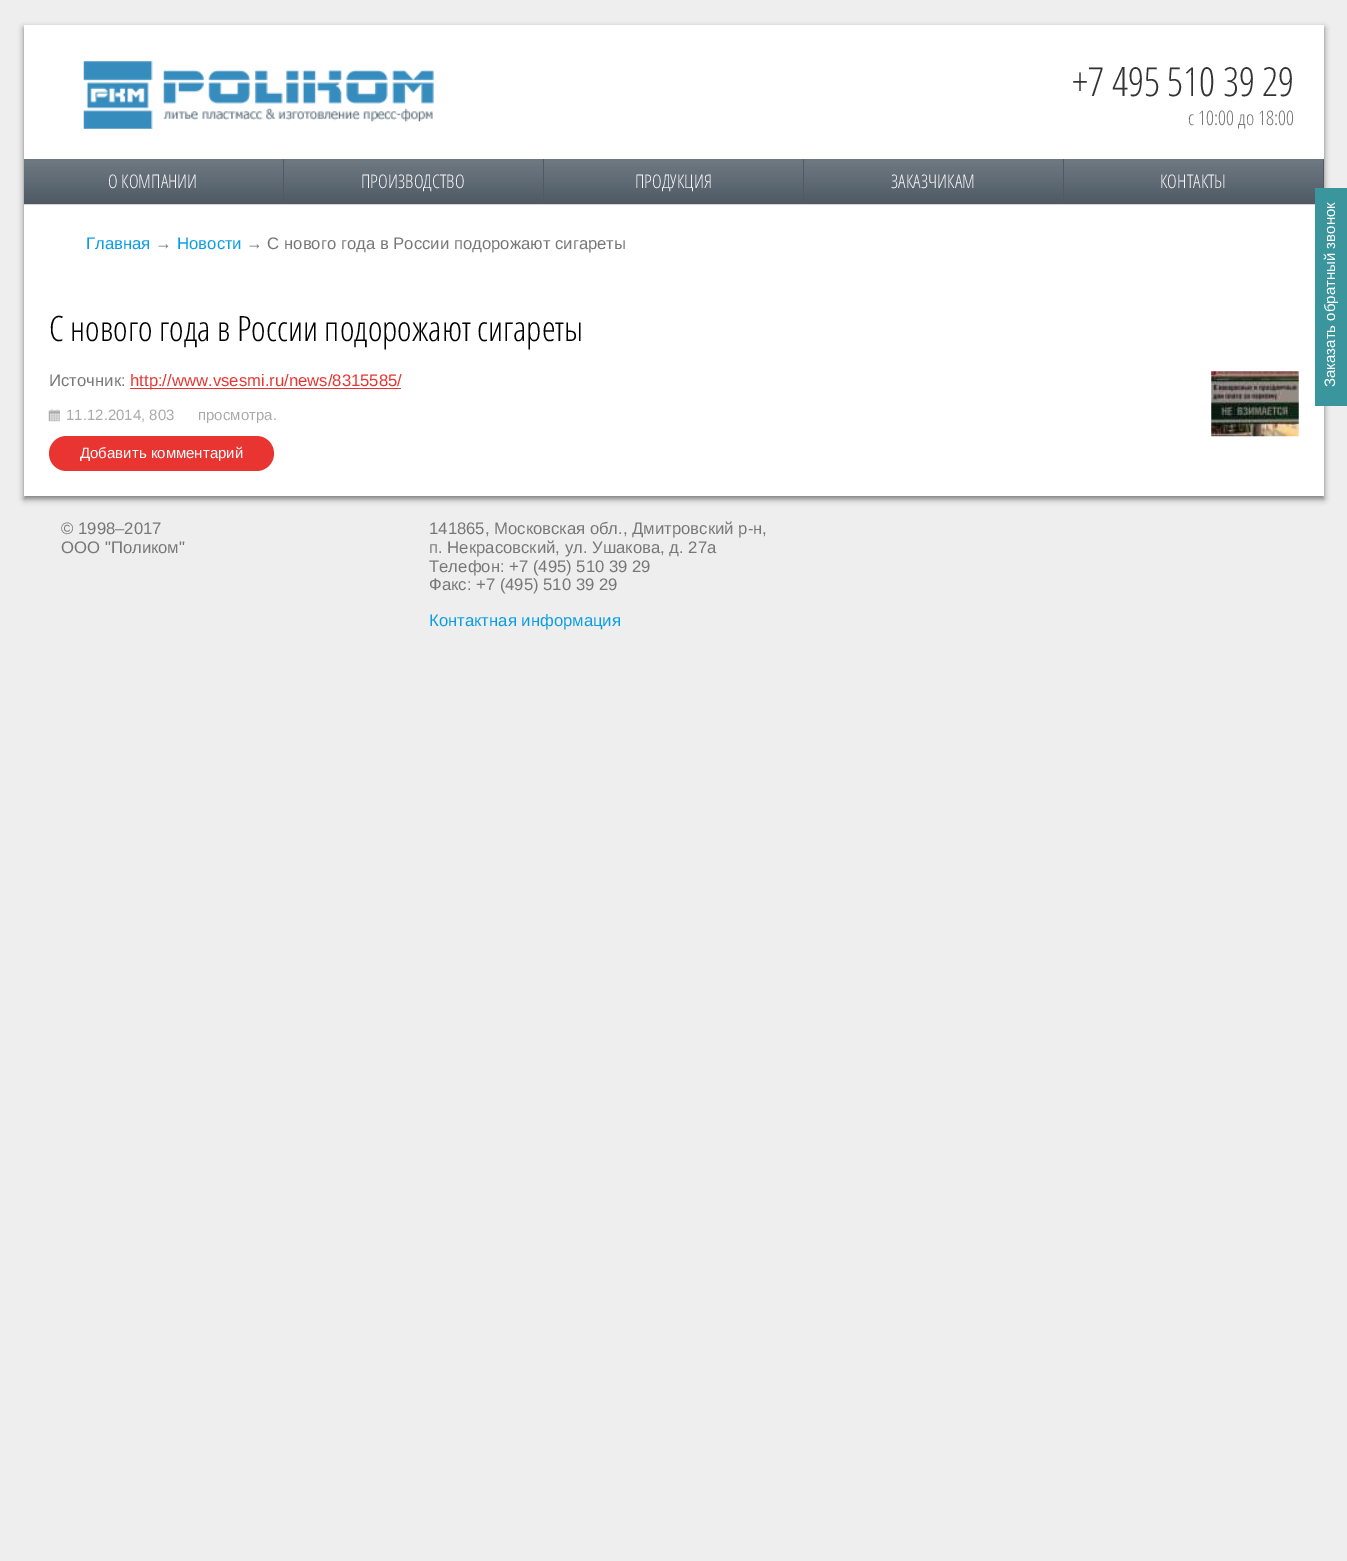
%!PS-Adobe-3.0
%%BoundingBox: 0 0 1347 1561
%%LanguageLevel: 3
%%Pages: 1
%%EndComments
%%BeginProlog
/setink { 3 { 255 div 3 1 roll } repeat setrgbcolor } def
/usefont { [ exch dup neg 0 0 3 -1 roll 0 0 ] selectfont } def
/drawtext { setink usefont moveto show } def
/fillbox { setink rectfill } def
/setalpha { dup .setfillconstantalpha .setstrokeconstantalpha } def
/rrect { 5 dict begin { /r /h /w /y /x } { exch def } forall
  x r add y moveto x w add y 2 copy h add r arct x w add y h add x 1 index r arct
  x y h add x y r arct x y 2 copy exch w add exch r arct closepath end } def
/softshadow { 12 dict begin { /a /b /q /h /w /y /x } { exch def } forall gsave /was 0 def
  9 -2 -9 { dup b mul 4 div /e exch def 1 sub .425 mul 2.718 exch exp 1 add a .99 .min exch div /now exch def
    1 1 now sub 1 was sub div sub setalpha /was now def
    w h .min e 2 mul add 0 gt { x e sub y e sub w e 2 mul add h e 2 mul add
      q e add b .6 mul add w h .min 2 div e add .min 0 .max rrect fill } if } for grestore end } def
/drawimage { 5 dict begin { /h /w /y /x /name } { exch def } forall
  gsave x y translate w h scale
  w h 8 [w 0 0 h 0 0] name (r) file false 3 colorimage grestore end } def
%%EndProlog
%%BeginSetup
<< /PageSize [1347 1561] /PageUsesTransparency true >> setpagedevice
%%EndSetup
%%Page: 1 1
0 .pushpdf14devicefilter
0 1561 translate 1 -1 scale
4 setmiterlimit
0 0 1347 1561 238 238 238 fillbox
119 119 119 setink
24 28 1300 471 0 3 1 softshadow
24 25 1300 471 255 255 255 fillbox
(assets/img1.rgb) 83 61 351 68 drawimage
(+7 495 510 39 29) 1072 96 /OpenSans-Light 40 51 51 51 drawtext
(с 10:00 до 18:00) 1188 125 /OpenSans-Light 20 119 119 119 drawtext
24 204 1291 1 213 211 211 fillbox
gsave 24 159 moveto 283 159 lineto 283 204 lineto 24 204 lineto closepath clip newpath
<< /ShadingType 2 /ColorSpace /DeviceRGB /Coords [153 159 153 204] /Extend [true true] /Function << /FunctionType 3 /Domain [0 1] /Functions [<< /FunctionType 2 /Domain [0 1] /C0 [0.431 0.471 0.51] /C1 [0.424 0.467 0.502] /N 1 >> << /FunctionType 2 /Domain [0 1] /C0 [0.424 0.467 0.502] /C1 [0.431 0.471 0.506] /N 1 >> << /FunctionType 2 /Domain [0 1] /C0 [0.431 0.471 0.506] /C1 [0.416 0.459 0.494] /N 1 >> << /FunctionType 2 /Domain [0 1] /C0 [0.416 0.459 0.494] /C1 [0.392 0.431 0.471] /N 1 >> << /FunctionType 2 /Domain [0 1] /C0 [0.392 0.431 0.471] /C1 [0.329 0.373 0.412] /N 1 >> << /FunctionType 2 /Domain [0 1] /C0 [0.329 0.373 0.412] /C1 [0.337 0.373 0.416] /N 1 >> << /FunctionType 2 /Domain [0 1] /C0 [0.337 0.373 0.416] /C1 [0.322 0.365 0.404] /N 1 >> << /FunctionType 2 /Domain [0 1] /C0 [0.322 0.365 0.404] /C1 [0.318 0.353 0.388] /N 1 >>] /Bounds [0.05 0.08 0.13 0.38 0.79 0.82 0.87] /Encode [0 1 0 1 0 1 0 1 0 1 0 1 0 1 0 1] >> >> shfill grestore
283 159 1 45 80 90 100 fillbox
(О КОМПАНИИ) 108 188 /OpenSans-Light 18.75 247 245 245 drawtext
gsave 284 159 moveto 543 159 lineto 543 204 lineto 284 204 lineto closepath clip newpath
<< /ShadingType 2 /ColorSpace /DeviceRGB /Coords [413 159 413 204] /Extend [true true] /Function << /FunctionType 3 /Domain [0 1] /Functions [<< /FunctionType 2 /Domain [0 1] /C0 [0.431 0.471 0.51] /C1 [0.424 0.467 0.502] /N 1 >> << /FunctionType 2 /Domain [0 1] /C0 [0.424 0.467 0.502] /C1 [0.431 0.471 0.506] /N 1 >> << /FunctionType 2 /Domain [0 1] /C0 [0.431 0.471 0.506] /C1 [0.416 0.459 0.494] /N 1 >> << /FunctionType 2 /Domain [0 1] /C0 [0.416 0.459 0.494] /C1 [0.392 0.431 0.471] /N 1 >> << /FunctionType 2 /Domain [0 1] /C0 [0.392 0.431 0.471] /C1 [0.329 0.373 0.412] /N 1 >> << /FunctionType 2 /Domain [0 1] /C0 [0.329 0.373 0.412] /C1 [0.337 0.373 0.416] /N 1 >> << /FunctionType 2 /Domain [0 1] /C0 [0.337 0.373 0.416] /C1 [0.322 0.365 0.404] /N 1 >> << /FunctionType 2 /Domain [0 1] /C0 [0.322 0.365 0.404] /C1 [0.318 0.353 0.388] /N 1 >>] /Bounds [0.05 0.08 0.13 0.38 0.79 0.82 0.87] /Encode [0 1 0 1 0 1 0 1 0 1 0 1 0 1 0 1] >> >> shfill grestore
543 159 1 45 80 90 100 fillbox
(ПРОИЗВОДСТВО) 361 188 /OpenSans-Light 18.75 247 245 245 drawtext
gsave 544 159 moveto 803 159 lineto 803 204 lineto 544 204 lineto closepath clip newpath
<< /ShadingType 2 /ColorSpace /DeviceRGB /Coords [673 159 673 204] /Extend [true true] /Function << /FunctionType 3 /Domain [0 1] /Functions [<< /FunctionType 2 /Domain [0 1] /C0 [0.431 0.471 0.51] /C1 [0.424 0.467 0.502] /N 1 >> << /FunctionType 2 /Domain [0 1] /C0 [0.424 0.467 0.502] /C1 [0.431 0.471 0.506] /N 1 >> << /FunctionType 2 /Domain [0 1] /C0 [0.431 0.471 0.506] /C1 [0.416 0.459 0.494] /N 1 >> << /FunctionType 2 /Domain [0 1] /C0 [0.416 0.459 0.494] /C1 [0.392 0.431 0.471] /N 1 >> << /FunctionType 2 /Domain [0 1] /C0 [0.392 0.431 0.471] /C1 [0.329 0.373 0.412] /N 1 >> << /FunctionType 2 /Domain [0 1] /C0 [0.329 0.373 0.412] /C1 [0.337 0.373 0.416] /N 1 >> << /FunctionType 2 /Domain [0 1] /C0 [0.337 0.373 0.416] /C1 [0.322 0.365 0.404] /N 1 >> << /FunctionType 2 /Domain [0 1] /C0 [0.322 0.365 0.404] /C1 [0.318 0.353 0.388] /N 1 >>] /Bounds [0.05 0.08 0.13 0.38 0.79 0.82 0.87] /Encode [0 1 0 1 0 1 0 1 0 1 0 1 0 1 0 1] >> >> shfill grestore
803 159 1 45 80 90 100 fillbox
(ПРОДУКЦИЯ) 635 188 /OpenSans-Light 18.75 247 245 245 drawtext
gsave 804 159 moveto 1063 159 lineto 1063 204 lineto 804 204 lineto closepath clip newpath
<< /ShadingType 2 /ColorSpace /DeviceRGB /Coords [933 159 933 204] /Extend [true true] /Function << /FunctionType 3 /Domain [0 1] /Functions [<< /FunctionType 2 /Domain [0 1] /C0 [0.431 0.471 0.51] /C1 [0.424 0.467 0.502] /N 1 >> << /FunctionType 2 /Domain [0 1] /C0 [0.424 0.467 0.502] /C1 [0.431 0.471 0.506] /N 1 >> << /FunctionType 2 /Domain [0 1] /C0 [0.431 0.471 0.506] /C1 [0.416 0.459 0.494] /N 1 >> << /FunctionType 2 /Domain [0 1] /C0 [0.416 0.459 0.494] /C1 [0.392 0.431 0.471] /N 1 >> << /FunctionType 2 /Domain [0 1] /C0 [0.392 0.431 0.471] /C1 [0.329 0.373 0.412] /N 1 >> << /FunctionType 2 /Domain [0 1] /C0 [0.329 0.373 0.412] /C1 [0.337 0.373 0.416] /N 1 >> << /FunctionType 2 /Domain [0 1] /C0 [0.337 0.373 0.416] /C1 [0.322 0.365 0.404] /N 1 >> << /FunctionType 2 /Domain [0 1] /C0 [0.322 0.365 0.404] /C1 [0.318 0.353 0.388] /N 1 >>] /Bounds [0.05 0.08 0.13 0.38 0.79 0.82 0.87] /Encode [0 1 0 1 0 1 0 1 0 1 0 1 0 1 0 1] >> >> shfill grestore
1063 159 1 45 80 90 100 fillbox
(ЗАКАЗЧИКАМ) 891 188 /OpenSans-Light 18.75 247 245 245 drawtext
gsave 1064 159 moveto 1323 159 lineto 1323 204 lineto 1064 204 lineto closepath clip newpath
<< /ShadingType 2 /ColorSpace /DeviceRGB /Coords [1193 159 1193 204] /Extend [true true] /Function << /FunctionType 3 /Domain [0 1] /Functions [<< /FunctionType 2 /Domain [0 1] /C0 [0.431 0.471 0.51] /C1 [0.424 0.467 0.502] /N 1 >> << /FunctionType 2 /Domain [0 1] /C0 [0.424 0.467 0.502] /C1 [0.431 0.471 0.506] /N 1 >> << /FunctionType 2 /Domain [0 1] /C0 [0.431 0.471 0.506] /C1 [0.416 0.459 0.494] /N 1 >> << /FunctionType 2 /Domain [0 1] /C0 [0.416 0.459 0.494] /C1 [0.392 0.431 0.471] /N 1 >> << /FunctionType 2 /Domain [0 1] /C0 [0.392 0.431 0.471] /C1 [0.329 0.373 0.412] /N 1 >> << /FunctionType 2 /Domain [0 1] /C0 [0.329 0.373 0.412] /C1 [0.337 0.373 0.416] /N 1 >> << /FunctionType 2 /Domain [0 1] /C0 [0.337 0.373 0.416] /C1 [0.322 0.365 0.404] /N 1 >> << /FunctionType 2 /Domain [0 1] /C0 [0.322 0.365 0.404] /C1 [0.318 0.353 0.388] /N 1 >>] /Bounds [0.05 0.08 0.13 0.38 0.79 0.82 0.87] /Encode [0 1 0 1 0 1 0 1 0 1 0 1 0 1 0 1] >> >> shfill grestore
1323 159 1 29 80 90 100 fillbox
(КОНТАКТЫ) 1160 188 /OpenSans-Light 18.75 247 245 245 drawtext
(Главная) 86 249 /LiberationSans-Regular 16.7 11 157 226 drawtext
(→) 155 249 /LiberationSans-Regular 16.7 119 119 119 drawtext
(Новости) 177 249 /LiberationSans-Regular 16.7 11 157 226 drawtext
(→ С нового года в России подорожают сигареты) 246 249 /LiberationSans-Regular 16.7 119 119 119 drawtext
(С нового года в России подорожают сигареты) 49 341 /OpenSans-Light 35 0 0 0 drawtext
(Источник:) 49 386 /LiberationSans-Regular 16.7 119 119 119 drawtext
130 388 271 1 232 53 49 fillbox
(http://www.vsesmi.ru/news/8315585/) 130 386 /LiberationSans-Regular 16.7 232 53 49 drawtext
(assets/img2.rgb) 1211 371 88 66 drawimage
(assets/img3.rgb) 48 408 12 14 drawimage
(11.12.2014, 803) 66 420 /LiberationSans-Regular 15 170 170 170 drawtext
(просмотра.) 198 420 /LiberationSans-Regular 15 170 170 170 drawtext
232 53 49 setink
49 436 225 35 17.5 rrect fill
(Добавить комментарий) 80 458 /LiberationSans-Regular 15 255 255 255 drawtext
1315 188 32 218 59 149 156 fillbox
255 255 255 setink
gsave 1335 387 translate -90 rotate 0 0 moveto (Заказать обратный звонок) show grestore
(© 1998–2017) 61 534 /LiberationSans-Regular 16.7 119 119 119 drawtext
(ООО "Поликом") 61 553 /LiberationSans-Regular 16.7 119 119 119 drawtext
(141865, Московская обл., Дмитровский р-н,) 429 534 /LiberationSans-Regular 16.7 119 119 119 drawtext
(п. Некрасовский, ул. Ушакова, д. 27а) 429 553 /LiberationSans-Regular 16.7 119 119 119 drawtext
(Телефон: +7 \(495\) 510 39 29) 429 572 /LiberationSans-Regular 16.7 119 119 119 drawtext
(Факс: +7 \(495\) 510 39 29) 429 590 /LiberationSans-Regular 16.7 119 119 119 drawtext
(Контактная информация) 429 626 /LiberationSans-Regular 16.7 11 157 226 drawtext
.poppdf14devicefilter showpage
%%EOF
